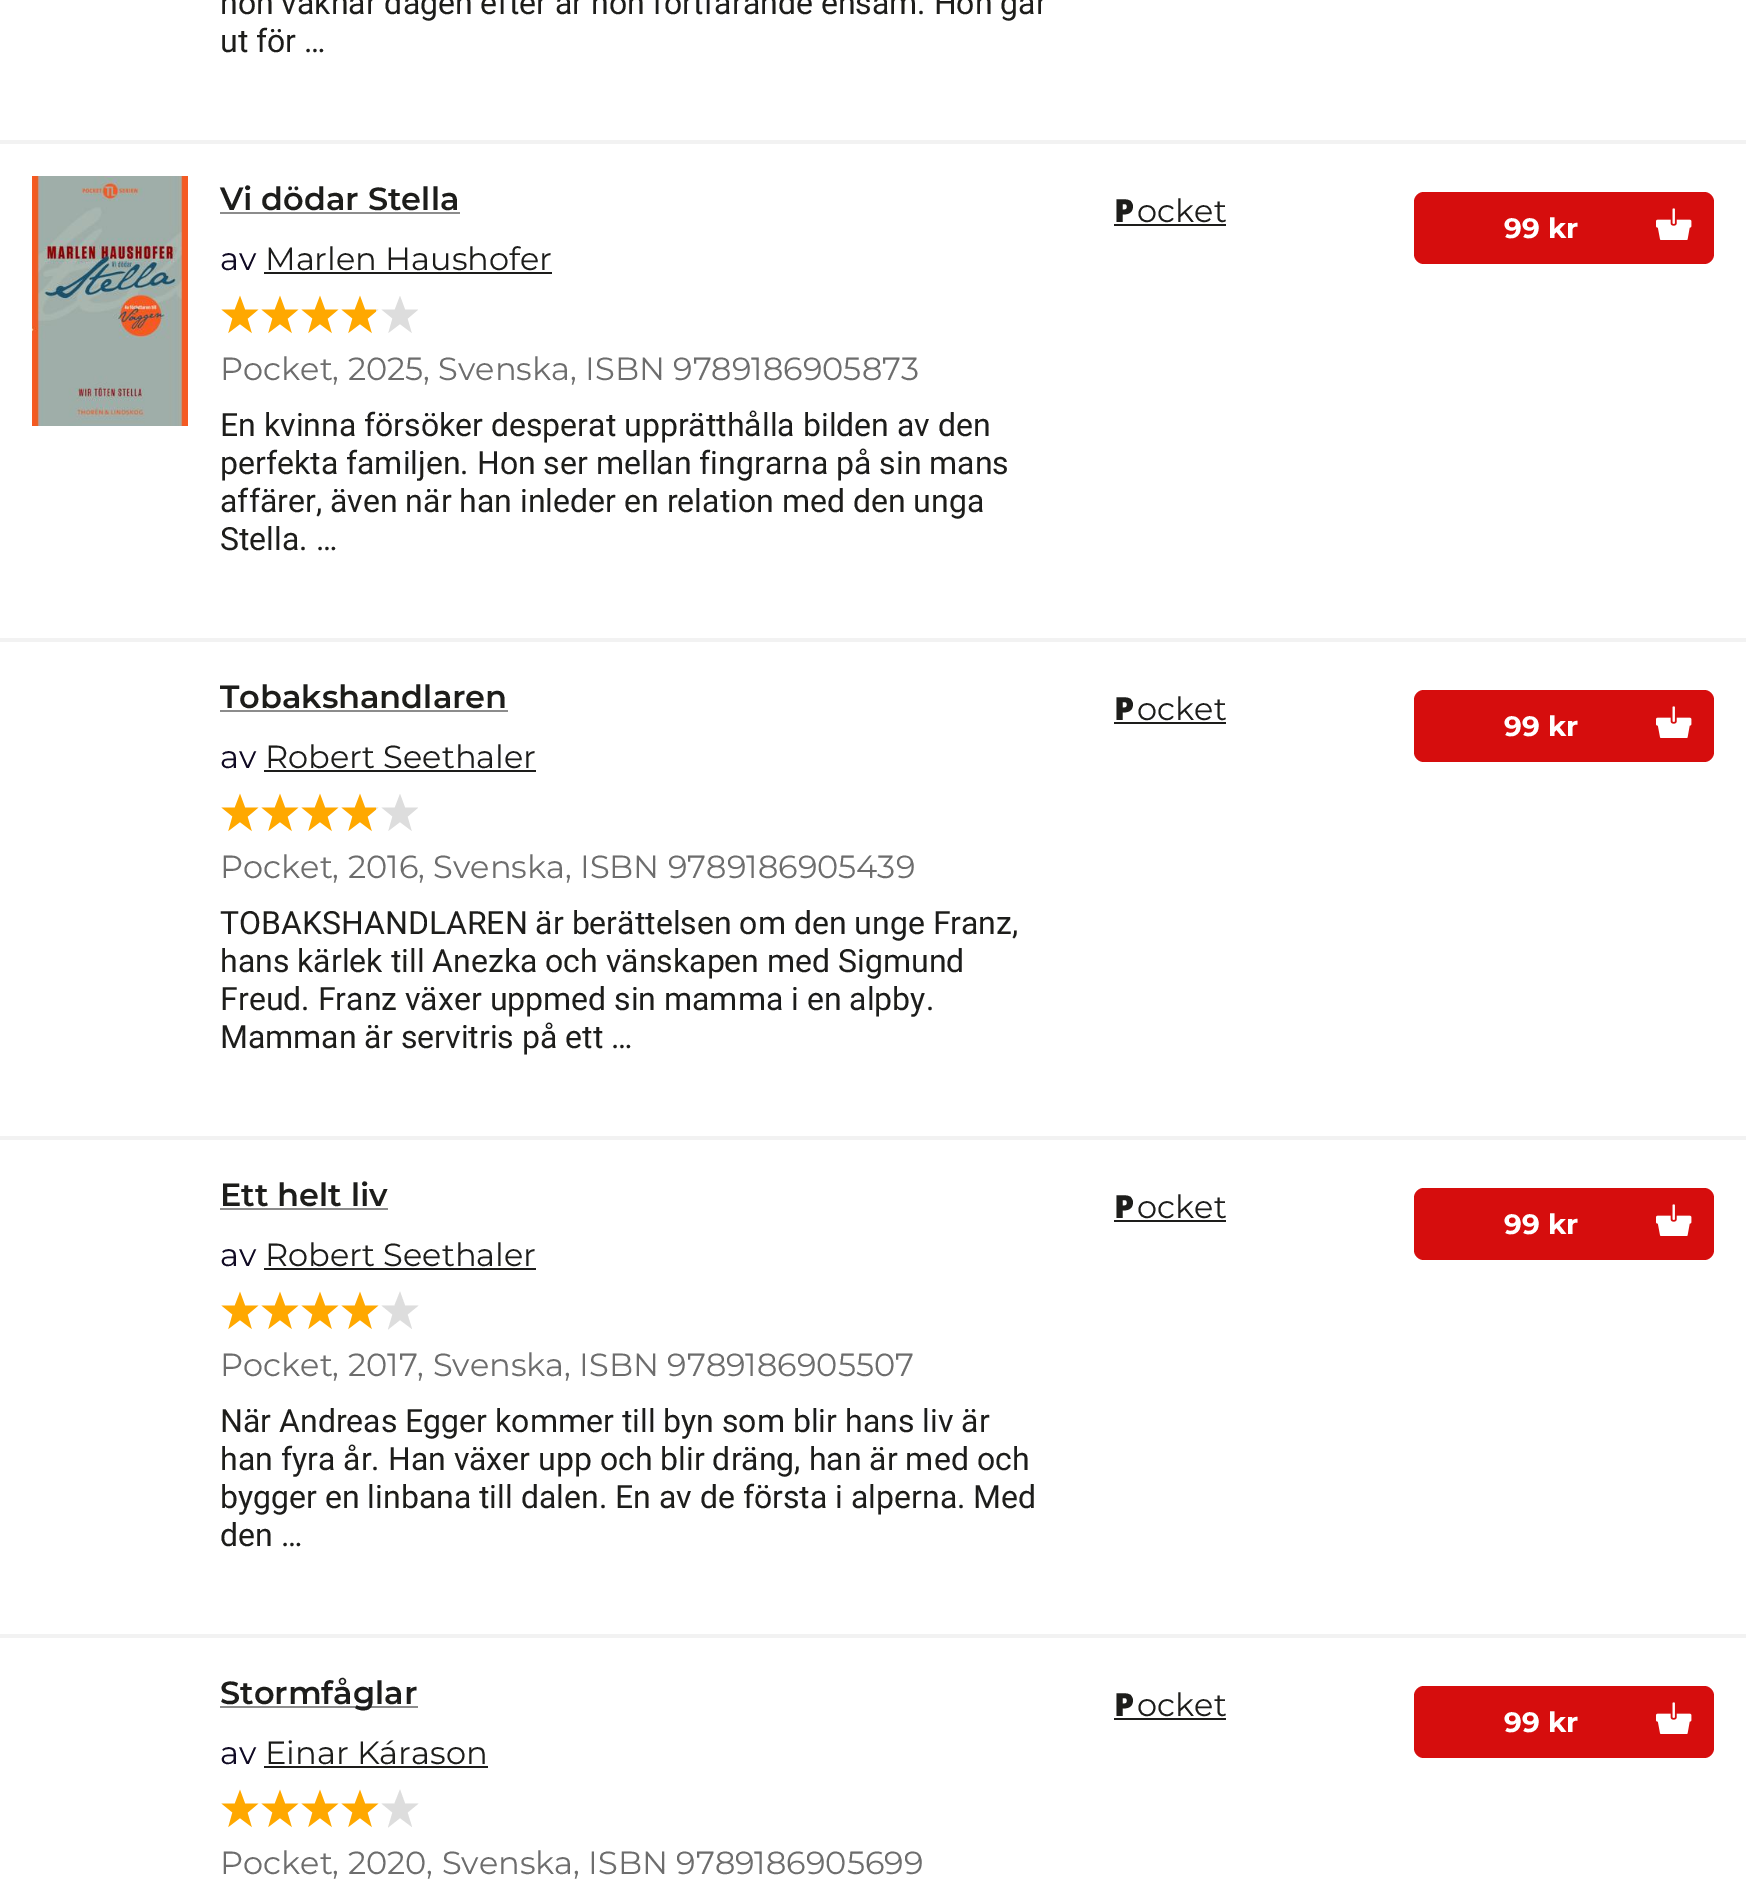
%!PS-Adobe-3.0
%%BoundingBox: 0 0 1746 1896
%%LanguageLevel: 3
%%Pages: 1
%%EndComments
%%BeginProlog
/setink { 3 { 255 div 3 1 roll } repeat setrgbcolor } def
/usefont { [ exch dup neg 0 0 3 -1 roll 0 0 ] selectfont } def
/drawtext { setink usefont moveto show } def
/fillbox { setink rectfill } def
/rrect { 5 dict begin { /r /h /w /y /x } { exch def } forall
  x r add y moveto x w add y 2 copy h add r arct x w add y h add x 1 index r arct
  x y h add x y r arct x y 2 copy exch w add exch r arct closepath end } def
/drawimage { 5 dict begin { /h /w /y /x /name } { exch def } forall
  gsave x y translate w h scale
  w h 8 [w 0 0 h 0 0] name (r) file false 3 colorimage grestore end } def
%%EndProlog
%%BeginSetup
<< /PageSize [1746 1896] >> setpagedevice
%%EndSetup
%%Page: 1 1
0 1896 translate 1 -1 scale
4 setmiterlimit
0 0 1746 1896 255 255 255 fillbox
(hon vaknar dagen efter är hon fortfarande ensam. Hon går) 220 14 /Roboto-Regular 32 29 29 27 drawtext
(ut för …) 220 52 /Roboto-Regular 32 29 29 27 drawtext
0 140 1746 4 242 242 242 fillbox
(assets/img1.rgb) 32 176 156 250 drawimage
(Vi dödar Stella) 220 210 /Montserrat-SemiBold 32 29 29 27 drawtext
220 212 240 2 140 140 140 fillbox
(av) 220 270 /Montserrat-Regular 32 16 10 36 drawtext
(Marlen Haushofer) 265 270 /Montserrat-Regular 32 29 29 27 drawtext
264 272 288 2 29 29 27 fillbox
(assets/img2.rgb) 221 295 155 39 drawimage
(assets/img3.rgb) 376 296 42 37 drawimage
(Pocket, 2025, Svenska, ISBN 9789186905873) 220 380 /Montserrat-Regular 32 109 109 109 drawtext
(En kvinna försöker desperat upprätthålla bilden av den) 220 436 /Roboto-Regular 32 29 29 27 drawtext
(perfekta familjen. Hon ser mellan fingrarna på sin mans) 220 474 /Roboto-Regular 32 29 29 27 drawtext
(affärer, även när han inleder en relation med den unga) 220 512 /Roboto-Regular 32 29 29 27 drawtext
(Stella. …) 220 550 /Roboto-Regular 32 29 29 27 drawtext
(P) 1114 222 /NotoSans-Black 32 29 29 27 drawtext
1114 224 112 2 29 29 27 fillbox
(ocket) 1137 222 /Montserrat-Regular 32 29 29 27 drawtext
214 13 13 setink
1414 192 300 72 10 rrect fill
(99 kr) 1504 238 /Montserrat-Bold 28 255 255 255 drawtext
(assets/img4.rgb) 1656 208 36 32 drawimage
0 638 1746 4 242 242 242 fillbox
(Tobakshandlaren) 220 708 /Montserrat-SemiBold 32 29 29 27 drawtext
220 710 288 2 140 140 140 fillbox
(av) 220 768 /Montserrat-Regular 32 16 10 36 drawtext
(Robert Seethaler) 265 768 /Montserrat-Regular 32 29 29 27 drawtext
264 770 272 2 29 29 27 fillbox
(assets/img2.rgb) 221 793 155 39 drawimage
(assets/img3.rgb) 376 794 42 37 drawimage
(Pocket, 2016, Svenska, ISBN 9789186905439) 220 878 /Montserrat-Regular 32 109 109 109 drawtext
(TOBAKSHANDLAREN är berättelsen om den unge Franz,) 220 934 /Roboto-Regular 32 29 29 27 drawtext
(hans kärlek till Anezka och vänskapen med Sigmund) 220 972 /Roboto-Regular 32 29 29 27 drawtext
(Freud. Franz växer uppmed sin mamma i en alpby.) 220 1010 /Roboto-Regular 32 29 29 27 drawtext
(Mamman är servitris på ett …) 220 1048 /Roboto-Regular 32 29 29 27 drawtext
(P) 1114 720 /NotoSans-Black 32 29 29 27 drawtext
1114 722 112 2 29 29 27 fillbox
(ocket) 1137 720 /Montserrat-Regular 32 29 29 27 drawtext
214 13 13 setink
1414 690 300 72 10 rrect fill
(99 kr) 1504 736 /Montserrat-Bold 28 255 255 255 drawtext
(assets/img4.rgb) 1656 706 36 32 drawimage
0 1136 1746 4 242 242 242 fillbox
(Ett helt liv) 220 1206 /Montserrat-SemiBold 32 29 29 27 drawtext
220 1208 168 2 140 140 140 fillbox
(av) 220 1266 /Montserrat-Regular 32 16 10 36 drawtext
(Robert Seethaler) 265 1266 /Montserrat-Regular 32 29 29 27 drawtext
264 1268 272 2 29 29 27 fillbox
(assets/img5.rgb) 221 1291 158 39 drawimage
221 221 221 setink
400 1291.5 moveto 394.5 1305.5 lineto 381.5 1305.5 lineto 392.5 1314.5 lineto 388 1329.5 lineto 400 1320 lineto 412 1329 lineto 407.5 1314.5 lineto 418.5 1305.5 lineto 405 1305.5 lineto closepath fill
(Pocket, 2017, Svenska, ISBN 9789186905507) 220 1376 /Montserrat-Regular 32 109 109 109 drawtext
(När Andreas Egger kommer till byn som blir hans liv är) 220 1432 /Roboto-Regular 32 29 29 27 drawtext
(han fyra år. Han växer upp och blir dräng, han är med och) 220 1470 /Roboto-Regular 32 29 29 27 drawtext
(bygger en linbana till dalen. En av de första i alperna. Med) 220 1508 /Roboto-Regular 32 29 29 27 drawtext
(den …) 220 1546 /Roboto-Regular 32 29 29 27 drawtext
(P) 1114 1218 /NotoSans-Black 32 29 29 27 drawtext
1114 1220 112 2 29 29 27 fillbox
(ocket) 1137 1218 /Montserrat-Regular 32 29 29 27 drawtext
214 13 13 setink
1414 1188 300 72 10 rrect fill
(99 kr) 1504 1234 /Montserrat-Bold 28 255 255 255 drawtext
(assets/img4.rgb) 1656 1204 36 32 drawimage
0 1634 1746 4 242 242 242 fillbox
220 1706 198 2 140 140 140 fillbox
(Stormfåglar) 220 1704 /Montserrat-SemiBold 32 29 29 27 drawtext
(av) 220 1764 /Montserrat-Regular 32 16 10 36 drawtext
(Einar Kárason) 265 1764 /Montserrat-Regular 32 29 29 27 drawtext
264 1766 224 2 29 29 27 fillbox
(assets/img5.rgb) 221 1789 158 39 drawimage
221 221 221 setink
400 1789.5 moveto 394.5 1803.5 lineto 381.5 1803.5 lineto 392.5 1812.5 lineto 388 1827.5 lineto 400 1818 lineto 412 1827 lineto 407.5 1812.5 lineto 418.5 1803.5 lineto 405 1803.5 lineto closepath fill
(Pocket, 2020, Svenska, ISBN 9789186905699) 220 1874 /Montserrat-Regular 32 109 109 109 drawtext
(P) 1114 1716 /NotoSans-Black 32 29 29 27 drawtext
1114 1718 112 2 29 29 27 fillbox
(ocket) 1137 1716 /Montserrat-Regular 32 29 29 27 drawtext
214 13 13 setink
1414 1686 300 72 10 rrect fill
(99 kr) 1504 1732 /Montserrat-Bold 28 255 255 255 drawtext
(assets/img4.rgb) 1656 1702 36 32 drawimage
showpage
%%EOF
